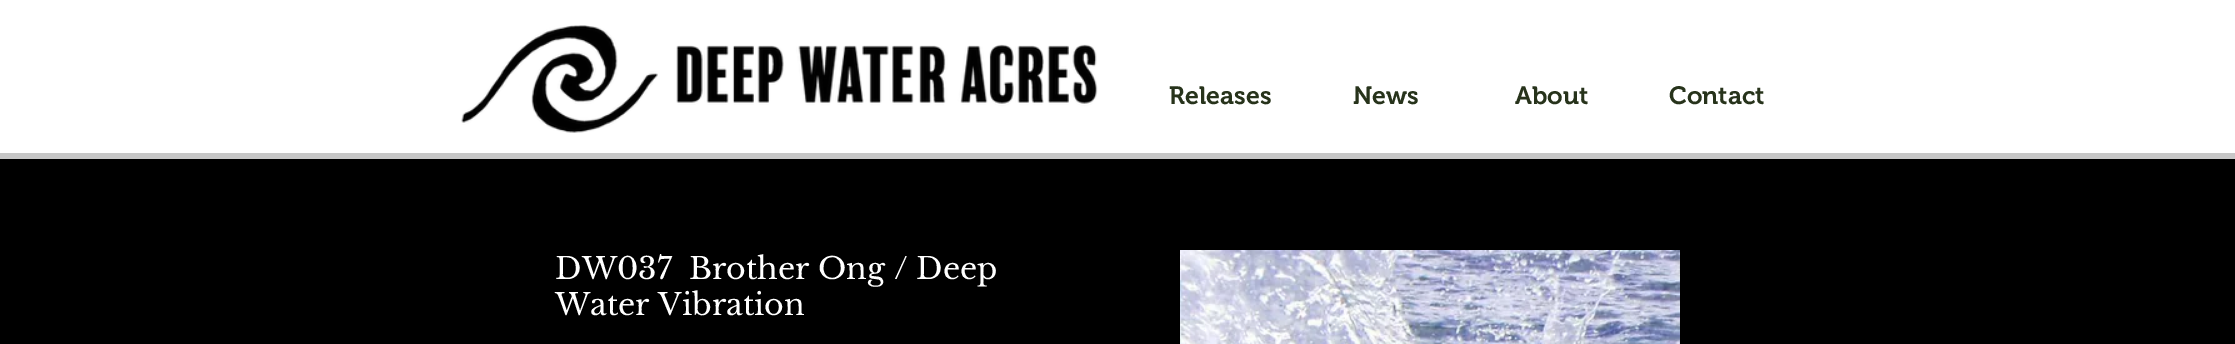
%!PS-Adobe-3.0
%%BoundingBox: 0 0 2235 344
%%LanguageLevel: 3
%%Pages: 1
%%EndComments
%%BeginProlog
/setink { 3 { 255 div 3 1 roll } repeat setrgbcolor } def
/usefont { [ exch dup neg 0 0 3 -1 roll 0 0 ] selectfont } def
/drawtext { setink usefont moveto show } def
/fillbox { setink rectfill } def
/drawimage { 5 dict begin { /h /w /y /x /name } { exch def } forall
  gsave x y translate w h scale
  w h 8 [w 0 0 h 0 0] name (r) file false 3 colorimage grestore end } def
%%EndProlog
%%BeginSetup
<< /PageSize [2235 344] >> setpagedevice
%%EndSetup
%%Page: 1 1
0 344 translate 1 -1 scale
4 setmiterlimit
0 0 2235 344 0 0 0 fillbox
0 0 2235 153 255 255 255 fillbox
0 153 2235 6 199 199 199 fillbox
(assets/img1.rgb) 461 25 637 108 drawimage
(Releases) 1169 104 /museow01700-SemiBold 25 39 51 27 drawtext
(News) 1353 104 /museow01700-SemiBold 25 39 51 27 drawtext
(About) 1515 104 /museow01700-SemiBold 25 39 51 27 drawtext
(Contact) 1669 104 /museow01700-SemiBold 25 39 51 27 drawtext
(DW037  Brother Ong / Deep) 555 279 /LibreBaskerville-Regular 30 255 255 255 drawtext
(Water Vibration) 555 315 /LibreBaskerville-Regular 30 255 255 255 drawtext
(assets/img2.rgb) 1180 250 500 94 drawimage
showpage
%%EOF
